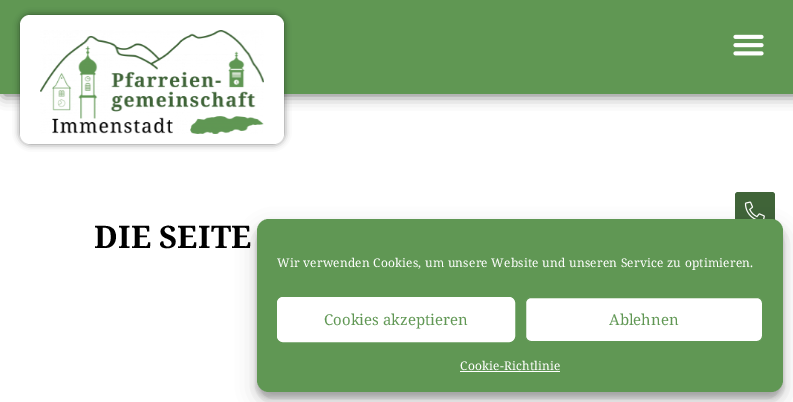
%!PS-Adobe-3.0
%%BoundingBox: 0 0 793 402
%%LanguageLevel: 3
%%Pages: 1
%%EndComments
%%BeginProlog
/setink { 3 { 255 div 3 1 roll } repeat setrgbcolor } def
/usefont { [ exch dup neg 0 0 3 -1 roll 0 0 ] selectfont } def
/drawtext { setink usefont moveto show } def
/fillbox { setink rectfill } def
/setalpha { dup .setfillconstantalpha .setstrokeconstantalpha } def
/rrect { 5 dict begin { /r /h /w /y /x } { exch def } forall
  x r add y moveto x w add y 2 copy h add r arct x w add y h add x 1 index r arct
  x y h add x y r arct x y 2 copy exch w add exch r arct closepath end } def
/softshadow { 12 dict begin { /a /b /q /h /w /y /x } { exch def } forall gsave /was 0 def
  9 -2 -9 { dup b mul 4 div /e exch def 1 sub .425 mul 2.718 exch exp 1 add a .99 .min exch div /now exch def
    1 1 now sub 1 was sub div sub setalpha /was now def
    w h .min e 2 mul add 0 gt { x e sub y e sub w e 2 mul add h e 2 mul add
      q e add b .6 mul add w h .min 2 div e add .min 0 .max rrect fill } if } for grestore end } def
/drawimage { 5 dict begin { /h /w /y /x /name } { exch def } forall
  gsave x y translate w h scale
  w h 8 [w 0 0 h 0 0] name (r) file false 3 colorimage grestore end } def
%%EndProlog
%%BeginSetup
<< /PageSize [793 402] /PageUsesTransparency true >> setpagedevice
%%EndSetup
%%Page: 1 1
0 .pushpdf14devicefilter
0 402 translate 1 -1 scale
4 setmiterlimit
0 0 793 402 255 255 255 fillbox
0 0 0 setink
4 1 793 94 0 7 0.59 softshadow
0 0 793 94 96 151 83 fillbox
0 0 0 setink
20 15 264 129 10 3.5 0.5 softshadow
255 255 255 setink
20 15 264 129 10 rrect fill
(assets/img1.rgb) 40 30 224 104 drawimage
(assets/img2.rgb) 733 34 31 22 drawimage
64 100 56 setink
735 192 40 40 3 rrect fill
(assets/img3.rgb) 744 201 21 18 drawimage
/NotoSerif-Bold 31 usefont
0 0 0 setink
94 248 moveto 0.2 0 (DIE SEITE) ashow
257 225 526 173 12 3 0.23 softshadow
257 229 526 173 12 10 0.19 softshadow
96 151 84 setink
257 219 526 173 12 rrect fill
/NotoSerif-Regular 12 usefont
255 255 255 setink
277 267 moveto 0.2 0 (Wir verwenden Cookies, um unsere Website und unseren Service zu optimieren.) ashow
277.5 297.5 237 44 5.5 rrect gsave fill grestore
stroke
(Cookies akzeptieren) 324 325 /NotoSerif-Regular 15 96 151 84 drawtext
255 255 255 setink
525.5 297.5 237 44 5.5 rrect gsave fill grestore
96 151 84 setink
stroke
(Ablehnen) 609 325 /NotoSerif-Regular 15 96 151 84 drawtext
/NotoSerif-Regular 12 usefont
255 255 255 setink
460 370 moveto 0.2 0 (Cookie-Richtlinie) ashow
460 371 100 1 255 255 255 fillbox
.poppdf14devicefilter showpage
%%EOF
